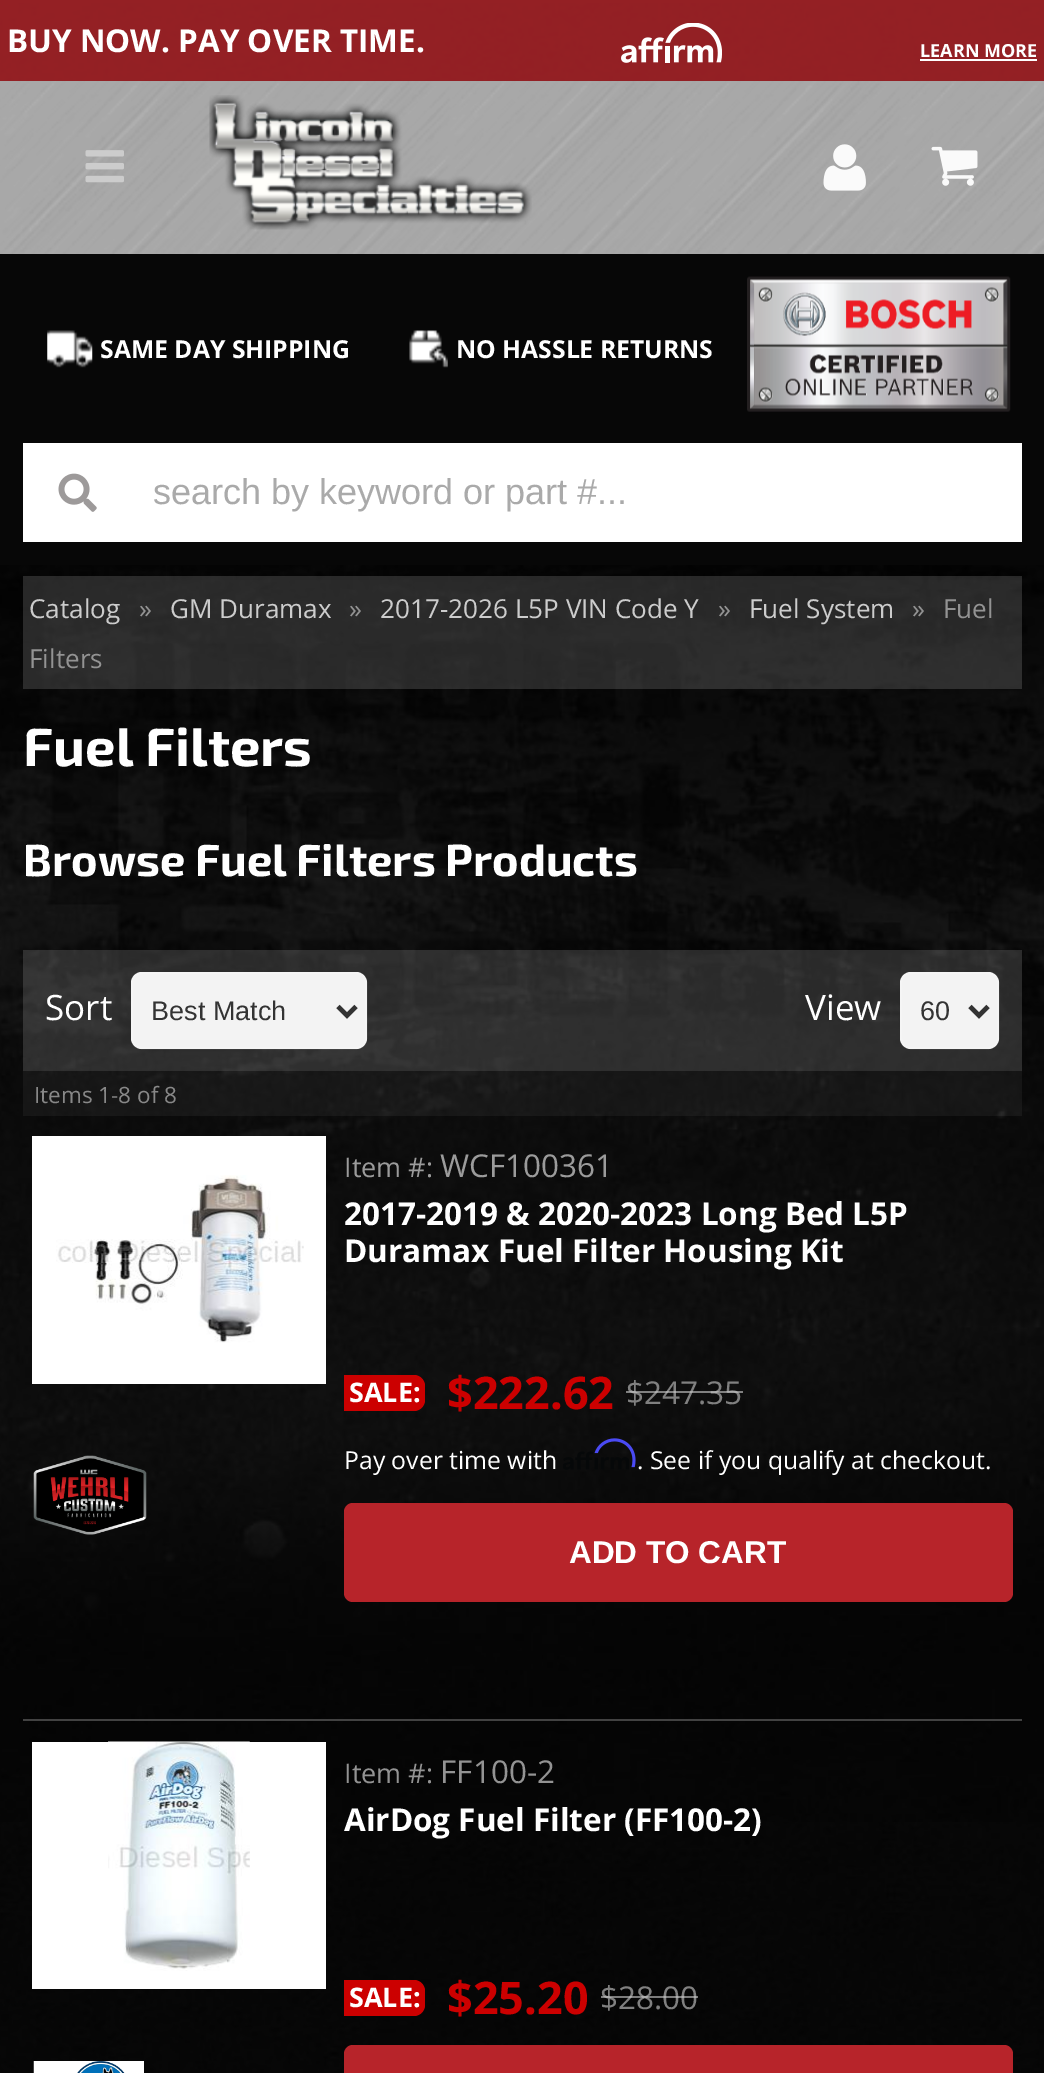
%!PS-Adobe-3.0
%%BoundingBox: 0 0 1044 2073
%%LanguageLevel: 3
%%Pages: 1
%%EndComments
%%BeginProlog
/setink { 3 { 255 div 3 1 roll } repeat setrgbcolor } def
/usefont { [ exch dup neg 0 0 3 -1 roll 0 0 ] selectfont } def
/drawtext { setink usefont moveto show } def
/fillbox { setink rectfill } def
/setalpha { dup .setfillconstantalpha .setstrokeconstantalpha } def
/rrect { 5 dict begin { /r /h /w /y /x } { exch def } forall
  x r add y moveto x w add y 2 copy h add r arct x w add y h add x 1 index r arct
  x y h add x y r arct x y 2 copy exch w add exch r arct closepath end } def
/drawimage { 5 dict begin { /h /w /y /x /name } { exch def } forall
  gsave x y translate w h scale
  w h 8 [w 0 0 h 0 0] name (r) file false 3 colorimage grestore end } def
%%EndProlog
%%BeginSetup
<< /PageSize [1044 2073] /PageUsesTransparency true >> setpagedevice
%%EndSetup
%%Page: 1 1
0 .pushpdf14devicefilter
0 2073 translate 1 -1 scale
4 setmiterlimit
0 0 1044 2073 14 14 14 fillbox
(assets/img1.rgb) 0 3 1044 2070 drawimage
(assets/img2.rgb) 0 565 1044 1257 drawimage
0.85 setalpha
0 0 1044 81 171 35 40 fillbox
1 setalpha
(BUY NOW. PAY OVER TIME.) 7 52 /OpenSans-Bold 31.5 255 255 255 drawtext
(assets/img3.rgb) 621 23 101 40 drawimage
(LEARN MORE) 920 57 /OpenSans-Bold 18 255 255 255 drawtext
920 59 117 2 255 255 255 fillbox
(assets/img4.rgb) 0 81 1044 173 drawimage
(assets/img5.rgb) 85 150 39 33 drawimage
(assets/img6.rgb) 209 95 323 135 drawimage
(assets/img7.rgb) 823 144 43 47 drawimage
(assets/img8.rgb) 931 146 47 40 drawimage
0 254 1044 311 7 7 7 fillbox
(assets/img9.rgb) 47 330 46 38 drawimage
(SAME DAY SHIPPING) 100 358 /OpenSans-Bold 24.75 255 255 255 drawtext
(assets/img10.rgb) 409 330 39 38 drawimage
(NO HASSLE RETURNS) 456 358 /OpenSans-Bold 24.75 255 255 255 drawtext
(assets/img11.rgb) 747 276 264 136 drawimage
23 443 999 99 255 255 255 fillbox
(assets/img12.rgb) 58 473 39 39 drawimage
(search by keyword or part #...) 153 504 /LiberationSans-Regular 36 170 170 170 drawtext
0.5 setalpha
0 565 1044 1508 0 0 0 fillbox
0.15 setalpha
23 576 999 113 250 250 250 fillbox
1 setalpha
(Catalog) 29 618 /OpenSans-Regular 26.1 204 204 204 drawtext
(») 139 618 /OpenSans-Regular 26.1 147 147 147 drawtext
(GM Duramax) 170 618 /OpenSans-Regular 26.1 204 204 204 drawtext
(») 349 618 /OpenSans-Regular 26.1 147 147 147 drawtext
(2017-2026 L5P VIN Code Y) 380 618 /OpenSans-Regular 26.1 204 204 204 drawtext
(») 718 618 /OpenSans-Regular 26.1 147 147 147 drawtext
(Fuel System) 749 618 /OpenSans-Regular 26.1 204 204 204 drawtext
(») 912 618 /OpenSans-Regular 26.1 147 147 147 drawtext
(Fuel) 943 618 /OpenSans-Regular 26.1 147 147 147 drawtext
(Filters) 29 668 /OpenSans-Regular 26.1 147 147 147 drawtext
(Fuel Filters) 23 766 /Exo2-Bold 54 255 255 255 drawtext
(Browse Fuel Filters Products) 23 876 /Exo2-Bold 45 255 255 255 drawtext
0.15 setalpha
23 950 999 121 250 250 250 fillbox
1 setalpha
(Sort) 45 1020 /OpenSans-Regular 35 255 255 255 drawtext
243 243 243 setink
131 972 236 77 11 rrect fill
0.25 setalpha
250 250 250 setink
2 setlinewidth
132 973 234 75 10 rrect stroke
1 setalpha
51 51 51 setink
4.5 setlinewidth
338 1006.5 moveto 347 1015.5 lineto 356 1006.5 lineto stroke
(Best Match) 151 1020 /LiberationSans-Regular 27 51 51 51 drawtext
(View) 805 1020 /OpenSans-Regular 35 255 255 255 drawtext
243 243 243 setink
900 972 99 77 11 rrect fill
0.25 setalpha
250 250 250 setink
2 setlinewidth
901 973 97 75 10 rrect stroke
1 setalpha
51 51 51 setink
4.5 setlinewidth
970 1006.5 moveto 979 1015.5 lineto 988 1006.5 lineto stroke
(60) 920 1020 /LiberationSans-Regular 27 51 51 51 drawtext
0.05 setalpha
23 1071 999 45 250 250 250 fillbox
1 setalpha
(Items 1-8 of 8) 34 1103 /OpenSans-Regular 22.5 136 136 136 drawtext
23 1719 999 2 66 66 66 fillbox
32 1136 294 248 255 255 255 fillbox
(assets/img13.rgb) 56 1175 248 168 drawimage
(assets/img14.rgb) 33 1455 114 80 drawimage
(Item #:) 344 1177 /OpenSans-Regular 27 155 155 155 drawtext
(WCF100361) 440 1177 /OpenSans-Regular 31.5 155 155 155 drawtext
(2017-2019 & 2020-2023 Long Bed L5P) 344 1225 /OpenSans-Bold 31.5 255 255 255 drawtext
(Duramax Fuel Filter Housing Kit) 344 1262 /OpenSans-Bold 31.5 255 255 255 drawtext
204 0 0 setink
344 1375 moveto 414 1375 lineto 420 1375 425 1380 425 1386 curveto 425 1400 lineto 425 1406 420 1411 414 1411 curveto 344 1411 lineto closepath fill
(SALE:) 349 1402 /OpenSans-Bold 27 255 255 255 drawtext
($222.62) 447 1409 /OpenSans-Bold 45 204 0 0 drawtext
($247.35) 626 1404 /OpenSans-Regular 31.5 128 128 128 drawtext
0.6 setalpha
626 1391 117 2 204 204 204 fillbox
1 setalpha
(Pay over time with) 344 1469 /OpenSans-Regular 24.75 255 255 255 drawtext
(assets/img16.rgb) 563 1451 66 19 drawimage
(assets/img15.rgb) 594 1438 42 30 drawimage
(. See if you qualify at checkout.) 637 1469 /OpenSans-Regular 24.75 255 255 255 drawtext
183 36 42 setink
344 1503 669 99 9 rrect fill
(ADD TO CART) 569 1563 /LiberationSans-Bold 31.5 255 255 255 drawtext
32 1742 294 247 255 255 255 fillbox
(assets/img17.rgb) 108 1741 142 230 drawimage
(assets/img18.rgb) 33 2061 111 12 drawimage
(Item #:) 344 1783 /OpenSans-Regular 27 147 147 147 drawtext
(FF100-2) 440 1783 /OpenSans-Regular 31.5 147 147 147 drawtext
(AirDog Fuel Filter \(FF100-2\)) 344 1831 /OpenSans-Bold 31.5 255 255 255 drawtext
204 0 0 setink
344 1980 moveto 414 1980 lineto 420 1980 425 1985 425 1991 curveto 425 2005 lineto 425 2011 420 2016 414 2016 curveto 344 2016 lineto closepath fill
(SALE:) 349 2007 /OpenSans-Bold 27 255 255 255 drawtext
($25.20) 447 2014 /OpenSans-Bold 45 204 0 0 drawtext
($28.00) 600 2009 /OpenSans-Regular 31.5 128 128 128 drawtext
0.6 setalpha
601 1996 97 2 204 204 204 fillbox
1 setalpha
183 36 42 setink
344 2045 669 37 9 rrect fill
.poppdf14devicefilter showpage
%%EOF
